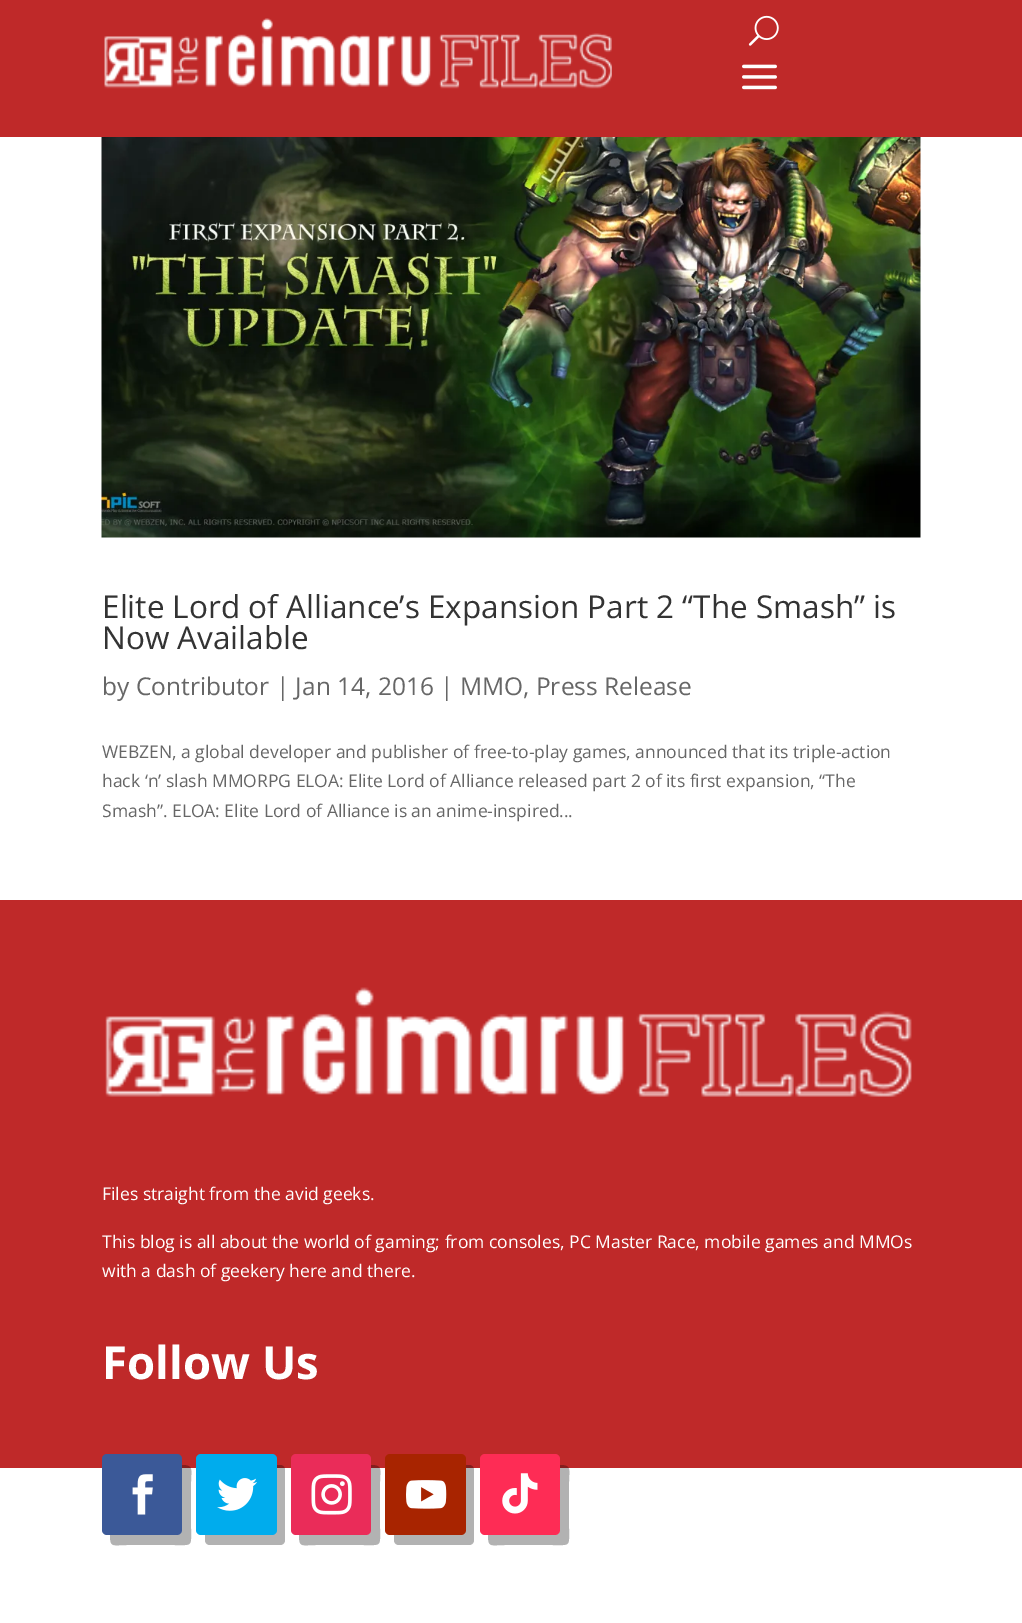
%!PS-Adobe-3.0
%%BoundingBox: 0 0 1022 1623
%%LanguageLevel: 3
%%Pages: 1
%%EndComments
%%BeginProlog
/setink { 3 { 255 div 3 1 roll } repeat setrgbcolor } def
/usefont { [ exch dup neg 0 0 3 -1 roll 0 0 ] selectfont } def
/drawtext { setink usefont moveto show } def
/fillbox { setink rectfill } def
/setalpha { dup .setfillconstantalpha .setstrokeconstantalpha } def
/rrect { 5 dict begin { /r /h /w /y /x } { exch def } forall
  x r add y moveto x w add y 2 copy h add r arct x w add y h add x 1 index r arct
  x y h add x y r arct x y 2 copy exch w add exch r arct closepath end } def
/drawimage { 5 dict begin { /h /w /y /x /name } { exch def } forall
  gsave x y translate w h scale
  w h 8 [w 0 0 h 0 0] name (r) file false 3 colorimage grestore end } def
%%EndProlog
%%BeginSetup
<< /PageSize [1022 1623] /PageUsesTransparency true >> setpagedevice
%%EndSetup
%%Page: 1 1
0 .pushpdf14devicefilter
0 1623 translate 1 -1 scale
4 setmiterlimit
0 0 1022 1623 255 255 255 fillbox
0 0 1022 137 191 41 41 fillbox
(assets/img1.rgb) 104 18 508 71 drawimage
(assets/img2.rgb) 748 15 31 31 drawimage
(assets/img3.rgb) 742 64 35 26 drawimage
(assets/img4.rgb) 101 137 820 401 drawimage
(Elite Lord of Alliance’s Expansion Part 2 “The Smash” is) 102 618 /OpenSans-Regular 31.5 51 51 51 drawtext
(Now Available) 102 649 /OpenSans-Regular 31.5 51 51 51 drawtext
(by Contributor | Jan 14, 2016 | MMO, Press Release) 102 695 /OpenSans-Regular 24.5 102 102 102 drawtext
(WEBZEN, a global developer and publisher of free-to-play games, announced that its triple-action) 102 758 /OpenSans-Regular 17.5 102 102 102 drawtext
(hack ‘n’ slash MMORPG ELOA: Elite Lord of Alliance released part 2 of its first expansion, “The) 102 787 /OpenSans-Regular 17.5 102 102 102 drawtext
(Smash”. ELOA: Elite Lord of Alliance is an anime-inspired...) 102 817 /OpenSans-Regular 17.5 102 102 102 drawtext
0 900 1022 568 191 41 41 fillbox
(assets/img5.rgb) 105 987 807 110 drawimage
(Files straight from the avid geeks.) 102 1200 /OpenSans-Regular 17.5 255 255 255 drawtext
(This blog is all about the world of gaming; from consoles, PC Master Race, mobile games and MMOs) 102 1248 /OpenSans-Regular 17.5 255 255 255 drawtext
(with a dash of geekery here and there.) 102 1277 /OpenSans-Regular 17.5 255 255 255 drawtext
(Follow Us) 102 1379 /OpenSans-Bold 45.5 255 255 255 drawtext
0.3 setalpha
0 0 0 setink
110 1535 moveto 110 1548 113 1545 127 1545 curveto 174 1545 lineto 193 1545 191 1547 191 1528 curveto 191 1482 lineto 191 1470 194 1465 182 1465 curveto 182 1530 lineto 182 1532 180 1535 177 1535 curveto closepath fill
1 setalpha
59 89 152 setink
102 1454 80 81 5 rrect fill
(assets/img6.rgb) 132 1474 21 41 drawimage
0.3 setalpha
0 0 0 setink
205 1535 moveto 205 1540 lineto 205 1543 207 1545 210 1545 curveto 280 1545 lineto 283 1545 285 1543 285 1540 curveto 285 1470 lineto 285 1467 283 1465 280 1465 curveto 276 1465 lineto 276 1530 lineto 276 1532 274 1535 271 1535 curveto closepath fill
1 setalpha
0 172 237 setink
196 1454 81 81 5 rrect fill
(assets/img7.rgb) 217 1478 40 33 drawimage
0.3 setalpha
0 0 0 setink
299 1535 moveto 299 1548 302 1545 316 1545 curveto 363 1545 lineto 382 1545 380 1547 380 1528 curveto 380 1482 lineto 380 1470 383 1465 371 1465 curveto 371 1530 lineto 371 1532 369 1535 366 1535 curveto closepath fill
1 setalpha
234 44 89 setink
291 1454 80 81 5 rrect fill
(assets/img8.rgb) 311 1474 41 41 drawimage
0.3 setalpha
0 0 0 setink
394 1535 moveto 394 1540 lineto 394 1543 396 1545 399 1545 curveto 469 1545 lineto 472 1545 474 1543 474 1540 curveto 474 1470 lineto 474 1467 472 1465 469 1465 curveto 466 1465 lineto 466 1530 lineto 466 1532 463 1535 460 1535 curveto closepath fill
1 setalpha
168 36 0 setink
385 1454 81 81 5 rrect fill
(assets/img9.rgb) 406 1480 41 29 drawimage
0.3 setalpha
0 0 0 setink
488 1535 moveto 488 1548 491 1545 505 1545 curveto 552 1545 lineto 571 1545 569 1547 569 1528 curveto 569 1482 lineto 569 1470 572 1465 560 1465 curveto 560 1530 lineto 560 1532 558 1535 555 1535 curveto closepath fill
1 setalpha
254 44 85 setink
480 1454 80 81 5 rrect fill
(assets/img10.rgb) 502 1473 36 41 drawimage
.poppdf14devicefilter showpage
%%EOF
